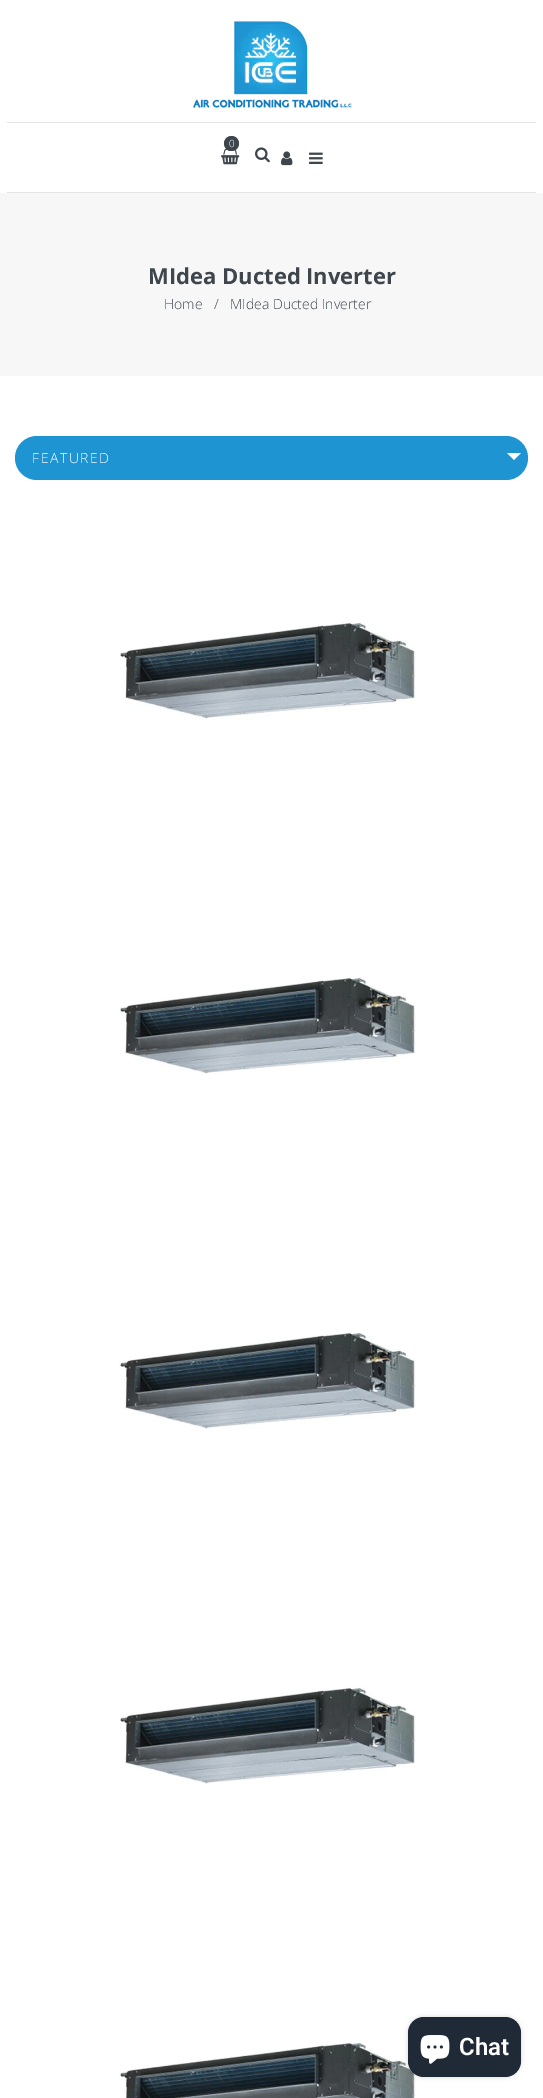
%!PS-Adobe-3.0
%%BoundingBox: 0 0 543 2098
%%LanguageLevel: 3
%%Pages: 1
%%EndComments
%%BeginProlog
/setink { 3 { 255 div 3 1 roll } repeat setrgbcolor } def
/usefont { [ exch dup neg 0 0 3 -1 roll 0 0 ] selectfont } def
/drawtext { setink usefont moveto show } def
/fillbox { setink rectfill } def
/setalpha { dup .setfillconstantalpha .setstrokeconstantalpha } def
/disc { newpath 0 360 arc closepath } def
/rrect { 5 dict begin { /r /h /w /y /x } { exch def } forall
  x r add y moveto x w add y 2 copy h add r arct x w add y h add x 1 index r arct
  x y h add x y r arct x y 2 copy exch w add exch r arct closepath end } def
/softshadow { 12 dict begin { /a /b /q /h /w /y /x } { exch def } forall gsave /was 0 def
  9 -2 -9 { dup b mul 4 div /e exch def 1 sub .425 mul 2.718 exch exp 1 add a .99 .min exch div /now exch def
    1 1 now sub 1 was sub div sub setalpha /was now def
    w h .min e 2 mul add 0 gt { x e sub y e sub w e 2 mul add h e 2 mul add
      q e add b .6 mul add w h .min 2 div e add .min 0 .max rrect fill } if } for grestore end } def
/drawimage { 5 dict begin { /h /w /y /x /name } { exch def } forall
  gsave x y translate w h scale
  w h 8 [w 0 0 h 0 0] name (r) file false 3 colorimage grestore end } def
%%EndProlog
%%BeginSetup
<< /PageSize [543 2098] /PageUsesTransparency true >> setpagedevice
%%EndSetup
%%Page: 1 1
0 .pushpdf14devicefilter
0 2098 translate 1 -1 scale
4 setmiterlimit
0 0 543 2098 255 255 255 fillbox
(assets/img1.rgb) 193 21 159 87 drawimage
7 122 529 1 229 229 229 fillbox
7 192 529 1 229 229 229 fillbox
(assets/img2.rgb) 221 148 19 17 drawimage
62 69 76 setink
231.5 143.5 7.5 disc fill
(0) 229 147 /OpenSans-Light 10 255 255 255 drawtext
(assets/img3.rgb) 255 147 15 16 drawimage
(assets/img4.rgb) 281 151 12 15 drawimage
(assets/img5.rgb) 309 152 14 12 drawimage
0 193 543 183 247 247 247 fillbox
(MIdea Ducted Inverter) 148 284 /OpenSans-Bold 22 62 69 76 drawtext
(Home) 164 309 /OpenSans-Light 14 62 69 76 drawtext
(/) 214 309 /OpenSans-Light 14 62 69 76 drawtext
(MIdea Ducted Inverter) 230 309 /OpenSans-Light 14 62 69 76 drawtext
31 148 210 setink
15 436 513 44 22 rrect fill
255 255 255 setink
32 463 moveto 1.5 0 (FEATURED) ashow
507 453 moveto 521 453 lineto 514 460 lineto closepath fill
(assets/img6.rgb) 119 622 297 97 drawimage
(assets/img6.rgb) 119 977 297 97 drawimage
(assets/img6.rgb) 119 1332 297 97 drawimage
(assets/img6.rgb) 119 1687 297 97 drawimage
(assets/img7.rgb) 119 2042 297 56 drawimage
0 0 0 setink
408 2017 113 60 16 2.5 0.15 softshadow
32 42 54 setink
408 2017 113 60 16 rrect fill
(assets/img8.rgb) 420 2035 30 29 drawimage
(Chat) 459 2055 /Roboto-SemiBold 24 255 255 255 drawtext
.poppdf14devicefilter showpage
%%EOF
